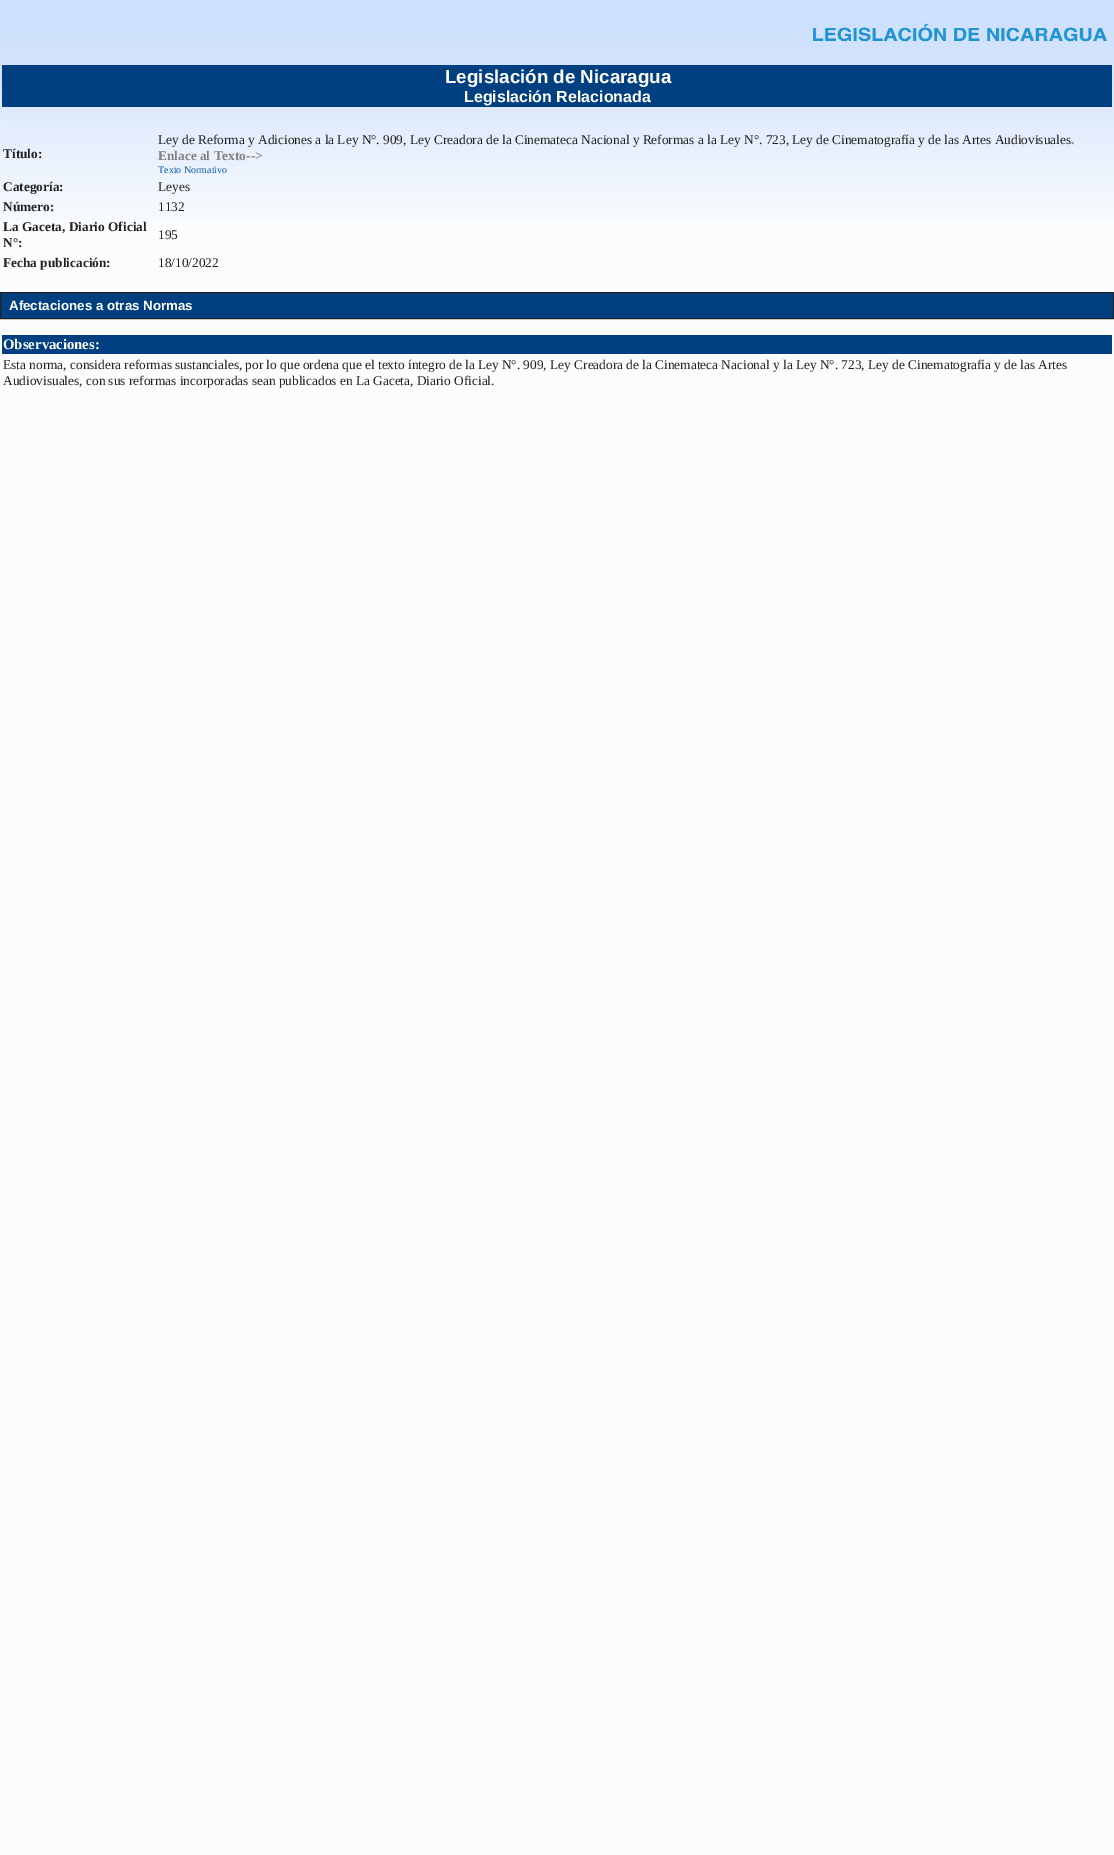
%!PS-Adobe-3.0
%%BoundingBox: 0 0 1114 1855
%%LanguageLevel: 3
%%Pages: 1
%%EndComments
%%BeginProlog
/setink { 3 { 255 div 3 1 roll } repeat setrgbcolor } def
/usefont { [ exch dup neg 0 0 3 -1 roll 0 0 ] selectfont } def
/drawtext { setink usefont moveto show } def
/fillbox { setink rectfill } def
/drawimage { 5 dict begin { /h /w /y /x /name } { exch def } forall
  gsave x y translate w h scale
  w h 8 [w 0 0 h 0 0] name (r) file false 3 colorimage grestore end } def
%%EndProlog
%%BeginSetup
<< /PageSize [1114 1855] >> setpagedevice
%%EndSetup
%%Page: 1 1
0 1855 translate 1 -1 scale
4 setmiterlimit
0 0 1114 1855 251 252 253 fillbox
(assets/img1.rgb) 0 0 1114 220 drawimage
(assets/img2.rgb) 813 23 294 19 drawimage
2 65 1110 42 0 64 128 fillbox
(Legislación de Nicaragua) 445 83 /LiberationSans-Bold 18.75 255 255 255 drawtext
(Legislación Relacionada) 464 102 /LiberationSans-Bold 16 255 255 255 drawtext
(...) 3 123 /LiberationSans-Regular 12 255 255 255 drawtext
(Título:) 3 158 /LiberationSerif-Bold 13.33 34 34 34 drawtext
(Ley de Reforma y Adiciones a la Ley N°. 909, Ley Creadora de la Cinemateca Nacional y Reformas a la Ley N°. 723, Ley de Cinematografía y de las Artes Audiovisuales) 158 144 /LiberationSerif-Regular 13.33 34 34 34 drawtext
(.) 1071 144 /LiberationSerif-Bold 13.33 128 128 128 drawtext
(Enlace al Texto-->) 158 160 /LiberationSerif-Bold 13.33 128 128 128 drawtext
(Texto Normativo) 158 173 /LiberationSerif-Regular 10 16 92 182 drawtext
(Categoría:) 3 191 /LiberationSerif-Bold 13.33 34 34 34 drawtext
(Leyes) 158 191 /LiberationSerif-Regular 13.33 34 34 34 drawtext
(Número:) 3 211 /LiberationSerif-Bold 13.33 34 34 34 drawtext
(1132) 158 211 /LiberationSerif-Regular 13.33 34 34 34 drawtext
(La Gaceta, Diario Oficial) 3 231 /LiberationSerif-Bold 13.33 34 34 34 drawtext
(N°:) 3 247 /LiberationSerif-Bold 13.33 34 34 34 drawtext
(195) 158 239 /LiberationSerif-Regular 13.33 34 34 34 drawtext
(Fecha publicación:) 3 267 /LiberationSerif-Bold 13.33 34 34 34 drawtext
(18/10/2022) 158 267 /LiberationSerif-Regular 13.33 34 34 34 drawtext
0 64 128 setink
0.5 292.5 moveto 1113.5 292.5 lineto 1113.5 318.5 lineto 0.5 318.5 lineto closepath gsave fill grestore
34 34 34 setink
stroke
(Afectaciones a otras Normas) 9 310 /LiberationSans-Bold 13.33 255 255 255 drawtext
2 335 1110 19 0 64 128 fillbox
(Observaciones:) 3 349 /LiberationSerif-Bold 14.75 255 255 255 drawtext
(Esta norma, considera reformas sustanciales, por lo que ordena que el texto íntegro de la Ley N°. 909, Ley Creadora de la Cinemateca Nacional y la Ley N°. 723, Ley de Cinematografía y de las Artes) 3 369 /LiberationSerif-Regular 13.33 34 34 34 drawtext
(Audiovisuales, con sus reformas incorporadas sean publicados en La Gaceta, Diario Oficial.) 3 385 /LiberationSerif-Regular 13.33 34 34 34 drawtext
showpage
%%EOF
